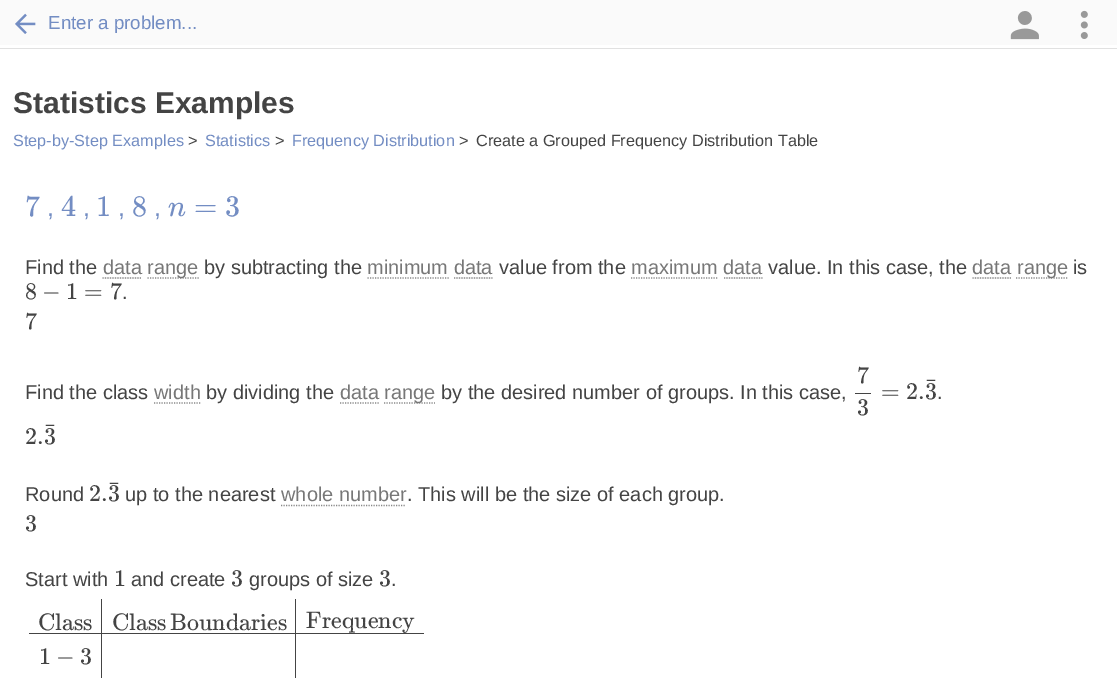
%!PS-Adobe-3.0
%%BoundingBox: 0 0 1117 678
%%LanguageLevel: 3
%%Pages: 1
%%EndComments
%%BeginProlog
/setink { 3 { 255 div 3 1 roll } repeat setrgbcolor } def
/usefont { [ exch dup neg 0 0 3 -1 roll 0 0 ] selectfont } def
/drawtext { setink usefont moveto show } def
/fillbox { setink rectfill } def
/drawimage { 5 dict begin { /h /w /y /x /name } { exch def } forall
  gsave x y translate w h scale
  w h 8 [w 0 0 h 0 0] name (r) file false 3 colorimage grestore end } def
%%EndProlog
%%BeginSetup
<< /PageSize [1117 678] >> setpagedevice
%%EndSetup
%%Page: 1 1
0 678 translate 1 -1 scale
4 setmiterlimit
0 0 1117 678 255 255 255 fillbox
0 48 1117 1 225 225 225 fillbox
0 0 1117 45 250 250 250 fillbox
(assets/img1.rgb) 15 13 21 21 drawimage
(Enter a problem...) 48 29 /LiberationSans-Regular 18.75 115 141 195 drawtext
(assets/img2.rgb) 1010 11 29 29 drawimage
(assets/img3.rgb) 1080 10 8 29 drawimage
(Statistics Examples) 13 113 /LiberationSans-Bold 30 68 68 68 drawtext
(Step-by-Step Examples) 13 146 /LiberationSans-Regular 16.25 115 141 195 drawtext
(>) 188 146 /LiberationSans-Regular 16.25 68 68 68 drawtext
(Statistics) 205 146 /LiberationSans-Regular 16.25 115 141 195 drawtext
(>) 275 146 /LiberationSans-Regular 16.25 68 68 68 drawtext
(Frequency Distribution) 292 146 /LiberationSans-Regular 16.25 115 141 195 drawtext
(>) 459 146 /LiberationSans-Regular 16.25 68 68 68 drawtext
(Create a Grouped Frequency Distribution Table) 476 146 /LiberationSans-Regular 16.25 68 68 68 drawtext
(7) 25 216 /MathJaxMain-Regular 30 115 141 195 drawtext
(,) 47 216 /LiberationSans-Regular 25 115 141 195 drawtext
(4) 61 216 /MathJaxMain-Regular 30 115 141 195 drawtext
(,) 83 216 /LiberationSans-Regular 25 115 141 195 drawtext
(1) 96 216 /MathJaxMain-Regular 30 115 141 195 drawtext
(,) 118 216 /LiberationSans-Regular 25 115 141 195 drawtext
(8) 132 216 /MathJaxMain-Regular 30 115 141 195 drawtext
(,) 154 216 /LiberationSans-Regular 25 115 141 195 drawtext
(n) 168 216 /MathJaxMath-Italic 30 115 141 195 drawtext
(=) 194 216 /MathJaxMain-Regular 30 115 141 195 drawtext
(3) 225 216 /MathJaxMain-Regular 30 115 141 195 drawtext
(Find the) 25 274 /LiberationSans-Regular 20 68 68 68 drawtext
(data) 103 274 /LiberationSans-Regular 20 119 119 119 drawtext
136 136 136 setink
1.2 setlinewidth
[1.25 1.25] 0 setdash
102.5 278 moveto 141 278 lineto stroke
147.5 278 moveto 199 278 lineto stroke
(range) 147 274 /LiberationSans-Regular 20 119 119 119 drawtext
(by subtracting the) 204 274 /LiberationSans-Regular 20 68 68 68 drawtext
(minimum data) 367 274 /LiberationSans-Regular 20 119 119 119 drawtext
136 136 136 setink
367.5 278 moveto 449 278 lineto stroke
(value from the) 499 274 /LiberationSans-Regular 20 68 68 68 drawtext
(maximum data) 631 274 /LiberationSans-Regular 20 119 119 119 drawtext
136 136 136 setink
631 278 moveto 717.5 278 lineto stroke
(value. In this case, the) 768 274 /LiberationSans-Regular 20 68 68 68 drawtext
(data) 972 274 /LiberationSans-Regular 20 119 119 119 drawtext
136 136 136 setink
972.5 278 moveto 1011 278 lineto stroke
1016 278 moveto 1067.5 278 lineto stroke
(range) 1017 274 /LiberationSans-Regular 20 119 119 119 drawtext
(is) 1073 274 /LiberationSans-Regular 20 68 68 68 drawtext
136 136 136 setink
454 278 moveto 492.5 278 lineto stroke
724 278 moveto 762.5 278 lineto stroke
(8) 25 299 /MathJaxMain-Regular 24 68 68 68 drawtext
(−) 42 299 /MathJaxMain-Regular 24 68 68 68 drawtext
(1) 66 299 /MathJaxMain-Regular 24 68 68 68 drawtext
(=) 84 299 /MathJaxMain-Regular 24 68 68 68 drawtext
(7) 110 299 /MathJaxMain-Regular 24 68 68 68 drawtext
(.) 122 299 /LiberationSans-Regular 20 68 68 68 drawtext
(7) 25 329 /MathJaxMain-Regular 24 68 68 68 drawtext
(Find the class) 25 399 /LiberationSans-Regular 20 68 68 68 drawtext
(width) 154 399 /LiberationSans-Regular 20 119 119 119 drawtext
136 136 136 setink
154 403 moveto 201 403 lineto stroke
(by dividing the) 206 399 /LiberationSans-Regular 20 68 68 68 drawtext
(data) 340 399 /LiberationSans-Regular 20 119 119 119 drawtext
136 136 136 setink
340 403 moveto 379 403 lineto stroke
384 403 moveto 435 403 lineto stroke
(range) 384 399 /LiberationSans-Regular 20 119 119 119 drawtext
(by the desired number of groups. In this case,) 441 399 /LiberationSans-Regular 20 68 68 68 drawtext
(7) 857 383 /MathJaxMain-Regular 24 68 68 68 drawtext
855 393 16 1 68 68 68 fillbox
(3) 857 415 /MathJaxMain-Regular 24 68 68 68 drawtext
(=) 881 399 /MathJaxMain-Regular 24 68 68 68 drawtext
(¯) 925 394 /MathJaxMain-Regular 24 68 68 68 drawtext
(2.3) 906 399 /MathJaxMain-Regular 24 68 68 68 drawtext
(.) 937 399 /LiberationSans-Regular 20 68 68 68 drawtext
(¯) 44 439 /MathJaxMain-Regular 24 68 68 68 drawtext
(2.3) 25 444 /MathJaxMain-Regular 24 68 68 68 drawtext
(Round) 25 501 /LiberationSans-Regular 20 68 68 68 drawtext
(¯) 108 497 /MathJaxMain-Regular 24 68 68 68 drawtext
(2.3) 89 501 /MathJaxMain-Regular 24 68 68 68 drawtext
(up to the nearest) 125 501 /LiberationSans-Regular 20 68 68 68 drawtext
(whole number) 281 501 /LiberationSans-Regular 20 119 119 119 drawtext
136 136 136 setink
281 505.5 moveto 406 505.5 lineto stroke
(. This will be the size of each group.) 407 501 /LiberationSans-Regular 20 68 68 68 drawtext
(3) 25 531 /MathJaxMain-Regular 24 68 68 68 drawtext
(Start with) 25 586 /LiberationSans-Regular 20 68 68 68 drawtext
(1) 114 586 /MathJaxMain-Regular 24 68 68 68 drawtext
(and create) 131 586 /LiberationSans-Regular 20 68 68 68 drawtext
(3) 231 586 /MathJaxMain-Regular 24 68 68 68 drawtext
(groups of size) 249 586 /LiberationSans-Regular 20 68 68 68 drawtext
(3) 379 586 /MathJaxMain-Regular 24 68 68 68 drawtext
(.) 391 586 /LiberationSans-Regular 20 68 68 68 drawtext
101 599 1 79 68 68 68 fillbox
29 633 74 1 68 68 68 fillbox
(Class) 38 630 /MathJaxMain-Regular 24 68 68 68 drawtext
295 599 1 79 68 68 68 fillbox
103 633 321 1 68 68 68 fillbox
(Class) 112 630 /MathJaxMain-Regular 24 68 68 68 drawtext
(Boundaries) 170 630 /MathJaxMain-Regular 24 68 68 68 drawtext
(Frequency) 306 628 /MathJaxMain-Regular 24 68 68 68 drawtext
(1) 39 664 /MathJaxMain-Regular 24 68 68 68 drawtext
(−) 56 664 /MathJaxMain-Regular 24 68 68 68 drawtext
(3) 80 664 /MathJaxMain-Regular 24 68 68 68 drawtext
showpage
%%EOF
